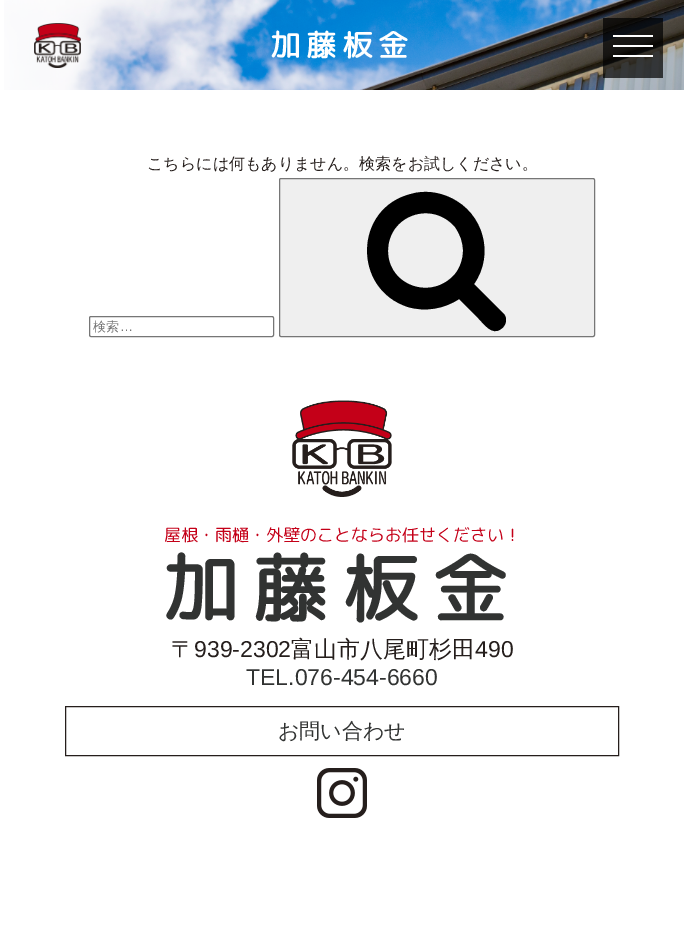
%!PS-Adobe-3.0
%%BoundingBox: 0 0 684 928
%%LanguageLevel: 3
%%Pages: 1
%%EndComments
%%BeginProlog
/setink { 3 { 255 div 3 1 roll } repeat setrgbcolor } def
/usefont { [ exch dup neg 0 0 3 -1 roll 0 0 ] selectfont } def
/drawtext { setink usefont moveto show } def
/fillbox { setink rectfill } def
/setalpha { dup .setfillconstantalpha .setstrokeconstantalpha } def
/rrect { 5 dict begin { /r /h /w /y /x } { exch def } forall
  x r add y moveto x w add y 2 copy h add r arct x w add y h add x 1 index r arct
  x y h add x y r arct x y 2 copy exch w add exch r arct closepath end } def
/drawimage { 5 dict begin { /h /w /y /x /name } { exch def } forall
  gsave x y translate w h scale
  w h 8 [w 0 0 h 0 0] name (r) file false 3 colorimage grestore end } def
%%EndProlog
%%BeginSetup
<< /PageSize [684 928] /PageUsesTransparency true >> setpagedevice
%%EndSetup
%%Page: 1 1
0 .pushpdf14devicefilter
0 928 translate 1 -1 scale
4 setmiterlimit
0 0 684 928 255 255 255 fillbox
(assets/img1.rgb) 4 0 680 90 drawimage
(assets/img2.rgb) 34 23 47 45 drawimage
/RoundedMplus1c-Bold 30 usefont
270 56 moveto 6 0 (加藤板金) ashow
0.7 setalpha
603 18 60 60 0 0 0 fillbox
1 setalpha
613 45 40 2 255 255 255 fillbox
613 35 40 2 255 255 255 fillbox
613 55 40 2 255 255 255 fillbox
(こちらには何もありません。検索をお試しください。) 147 169 /WenQuanYiZenHei-Medium 16 37 30 28 drawtext
118 118 118 setink
89.5 316.5 184 20 1.5 rrect stroke
(検索) 93 331 /WenQuanYiZenHei-Medium 13 117 117 117 drawtext
(…) 120 331 /LiberationSans-Regular 13 117 117 117 drawtext
239 239 239 setink
279.5 178.5 315 158 1.5 rrect gsave fill grestore
118 118 118 setink
stroke
0 0 0 setink
463 251 moveto 463 242 460 234 455 227 curveto 432 200 388 215 388 251 curveto 388 286 432 301 455 274 curveto 460 268 463 259 463 251 curveto closepath 506 320 moveto 506 324 504 327 501 329 curveto 492 336 484 324 478 318 curveto 459 299 lineto 444 309 425 312 408 307 curveto 352 289 354 208 411 194 curveto 424 190 439 192 451 198 curveto 483 213 495 254 474 284 curveto 503 313 lineto 505 315 506 317 506 320 curveto closepath fill
(assets/img3.rgb) 292 400 100 97 drawimage
(屋根・雨樋・外壁のことならお任せください！) 164 541 /RoundedMplus1c-Regular 17 196 0 24 drawtext
/RoundedMplus1c-Bold 75 usefont
49 51 50 setink
162 616 moveto 15 0 (加藤板金) ashow
(〒) 171 657 /WenQuanYiZenHei-Medium 23 37 30 28 drawtext
(939-2302) 194 657 /LiberationSans-Regular 23 37 30 28 drawtext
(富山市八尾町杉田) 291 657 /WenQuanYiZenHei-Medium 23 37 30 28 drawtext
(490) 475 657 /LiberationSans-Regular 23 37 30 28 drawtext
(TEL.076-454-6660) 246 685 /LiberationSans-Regular 23 49 51 50 drawtext
37 30 28 setink
65.5 706.5 553 49 rectstroke
(お問い合わせ) 278 738 /WenQuanYiZenHei-Medium 21 49 51 50 drawtext
(assets/img4.rgb) 317 768 50 50 drawimage
.poppdf14devicefilter showpage
%%EOF
